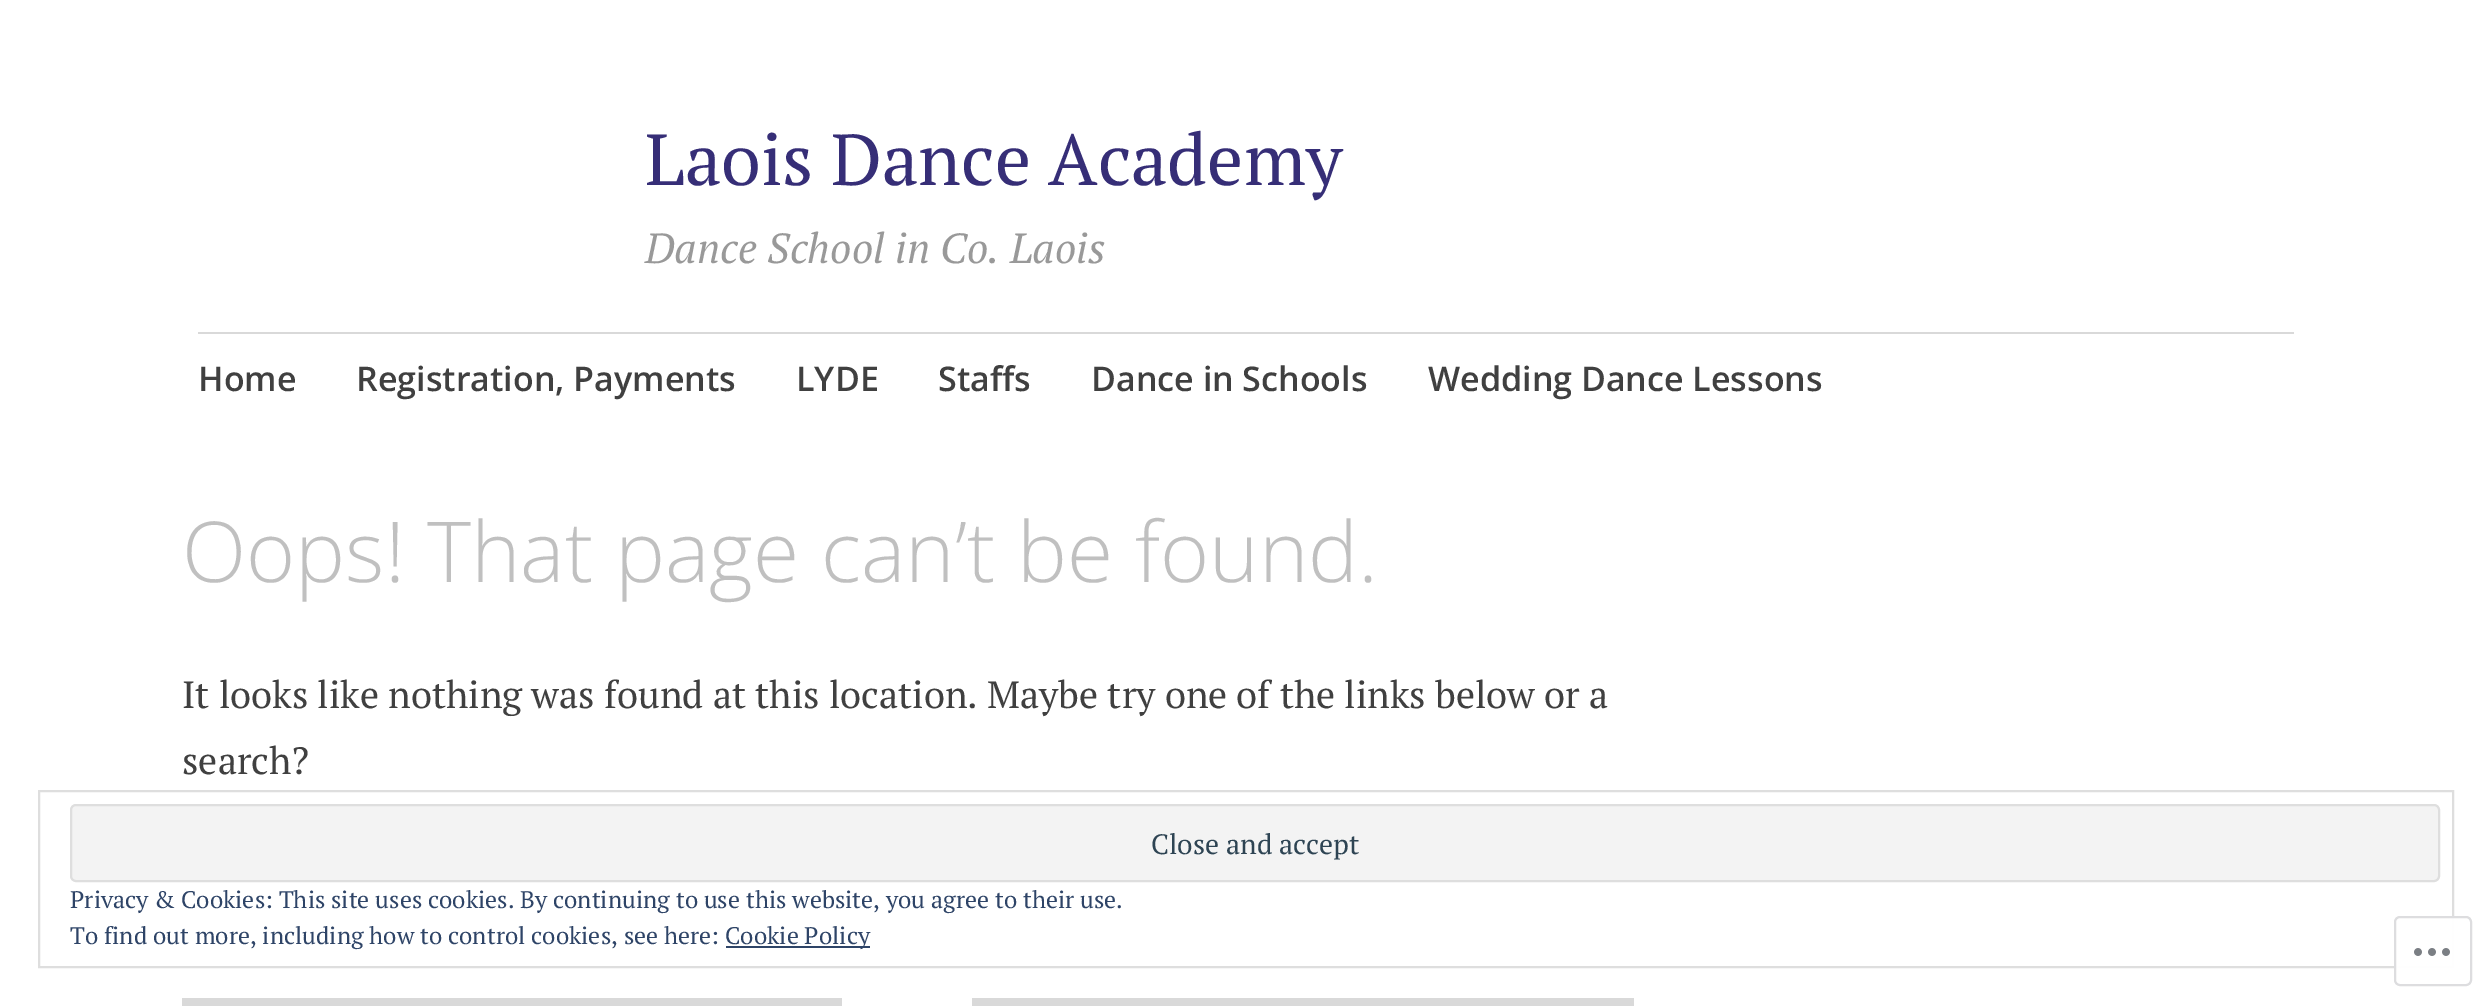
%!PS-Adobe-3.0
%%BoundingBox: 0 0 2491 1006
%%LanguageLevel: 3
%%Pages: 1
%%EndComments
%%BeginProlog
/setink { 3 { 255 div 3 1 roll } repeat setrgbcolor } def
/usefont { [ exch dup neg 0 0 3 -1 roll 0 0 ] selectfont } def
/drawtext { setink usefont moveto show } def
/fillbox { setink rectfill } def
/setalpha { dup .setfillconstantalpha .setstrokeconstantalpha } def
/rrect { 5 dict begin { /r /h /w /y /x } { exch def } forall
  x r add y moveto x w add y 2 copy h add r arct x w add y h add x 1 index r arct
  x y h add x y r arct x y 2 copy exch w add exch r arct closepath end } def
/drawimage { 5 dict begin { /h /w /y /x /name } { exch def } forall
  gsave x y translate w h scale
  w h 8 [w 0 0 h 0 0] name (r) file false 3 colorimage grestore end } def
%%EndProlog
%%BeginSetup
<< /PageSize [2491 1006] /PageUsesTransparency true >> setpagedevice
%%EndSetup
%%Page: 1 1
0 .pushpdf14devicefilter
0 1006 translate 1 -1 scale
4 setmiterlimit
0 0 2491 1006 255 255 255 fillbox
(Laois Dance Academy) 645 185 /PTSerif-Regular 72 54 46 119 drawtext
(Dance School in Co. Laois) 645 263 /PTSerif-Italic 42 153 153 153 drawtext
198 332 2096 2 217 217 217 fillbox
(Home) 198 391 /OpenSans-SemiBold 34 64 64 64 drawtext
(Registration, Payments) 356 391 /OpenSans-SemiBold 34 64 64 64 drawtext
(LYDE) 796 391 /OpenSans-SemiBold 34 64 64 64 drawtext
(Staffs) 938 391 /OpenSans-SemiBold 34 64 64 64 drawtext
(Dance in Schools) 1091 391 /OpenSans-SemiBold 34 64 64 64 drawtext
(Wedding Dance Lessons) 1428 391 /OpenSans-SemiBold 34 64 64 64 drawtext
(Oops! That page can’t be found.) 182 582 /OpenSans-Light 84 192 192 192 drawtext
(It looks like nothing was found at this location. Maybe try one of the links below or a) 182 708 /PTSerif-Regular 38 64 64 64 drawtext
(search?) 182 774 /PTSerif-Regular 38 64 64 64 drawtext
182 998 660 8 217 217 217 fillbox
972 998 662 8 217 217 217 fillbox
222 222 222 setink
2 setlinewidth
39 791 2414 176 rectstroke
243 243 243 setink
71 805 2368 76 5 rrect gsave fill grestore
222 222 222 setink
stroke
(Close and accept) 1151 854 /PTSerif-Regular 28 46 68 83 drawtext
(Privacy & Cookies: This site uses cookies. By continuing to use this website, you agree to their use.) 70 908 /PTSerif-Regular 24 46 68 103 drawtext
(To find out more, including how to control cookies, see here:) 70 944 /PTSerif-Regular 24 46 68 103 drawtext
726 946 144 2 46 68 103 fillbox
(Cookie Policy) 725 944 /PTSerif-Regular 24 46 68 103 drawtext
0.98 setalpha
255 255 255 setink
2395 917 76 68 5 rrect fill
1 setalpha
221 221 223 setink
2395 917 76 68 5 rrect stroke
(assets/img1.rgb) 2414 948 36 8 drawimage
.poppdf14devicefilter showpage
%%EOF
